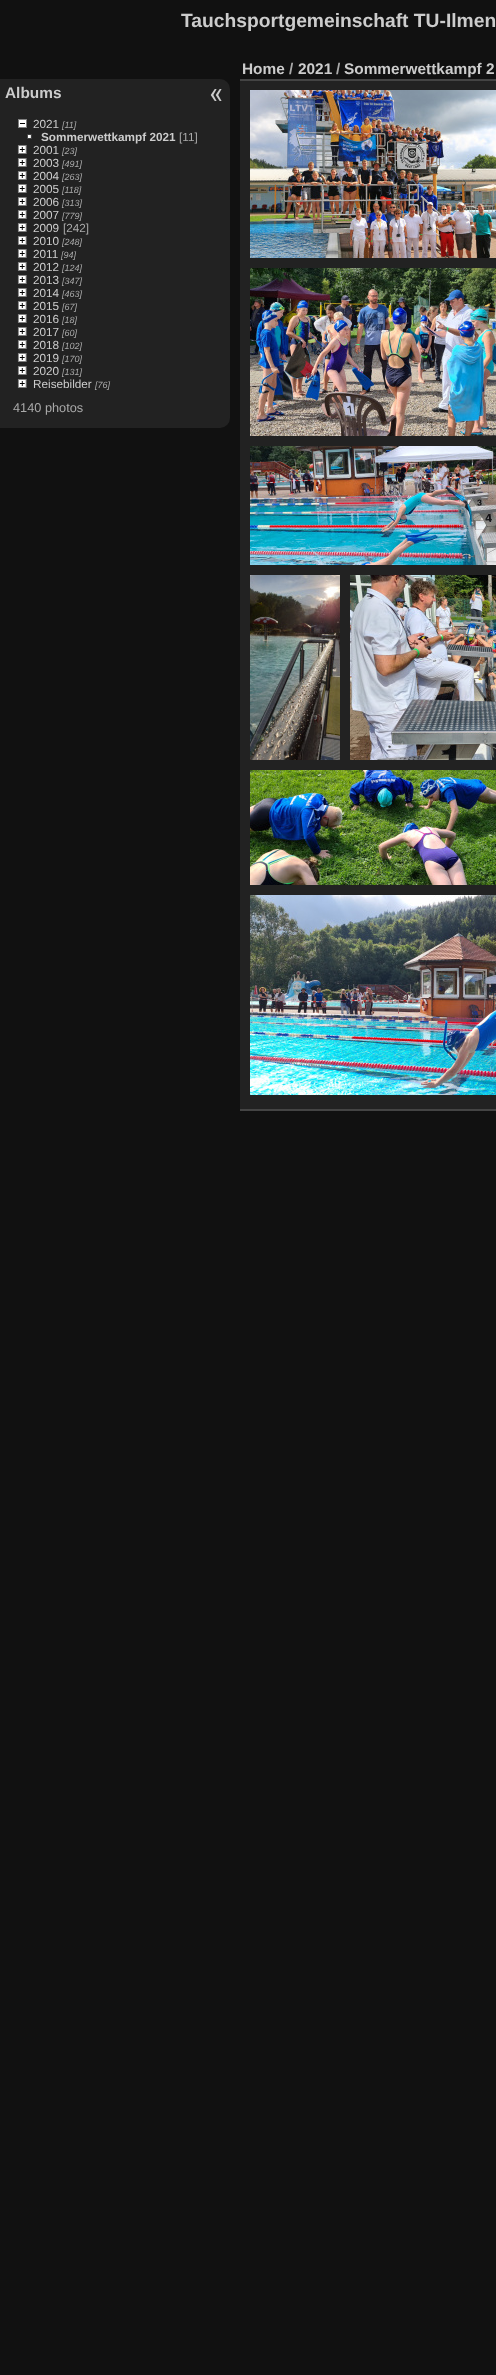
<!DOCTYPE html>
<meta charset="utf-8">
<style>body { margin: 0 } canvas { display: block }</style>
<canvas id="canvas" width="496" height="2375"></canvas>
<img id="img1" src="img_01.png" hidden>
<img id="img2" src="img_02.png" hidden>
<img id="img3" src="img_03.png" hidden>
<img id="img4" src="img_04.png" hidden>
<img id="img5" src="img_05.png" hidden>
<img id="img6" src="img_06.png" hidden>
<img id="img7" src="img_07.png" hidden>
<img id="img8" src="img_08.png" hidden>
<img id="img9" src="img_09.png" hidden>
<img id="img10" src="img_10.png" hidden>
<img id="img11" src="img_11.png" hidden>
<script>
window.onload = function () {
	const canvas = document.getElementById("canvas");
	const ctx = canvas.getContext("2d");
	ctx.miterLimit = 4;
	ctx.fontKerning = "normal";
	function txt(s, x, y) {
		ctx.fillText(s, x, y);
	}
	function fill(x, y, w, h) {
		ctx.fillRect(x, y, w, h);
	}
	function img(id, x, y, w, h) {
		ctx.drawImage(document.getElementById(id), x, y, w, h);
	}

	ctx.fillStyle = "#111111";
	fill(0, 0, 496, 2375);
	ctx.fillStyle = "#222222";
	fill(240, 81, 256, 1028);
	ctx.fillStyle = "#444444";
	fill(240, 1109, 256, 2);
	fill(240, 79, 256, 2);
	img("img1", 250, 90, 246, 168);
	img("img2", 250, 268, 246, 168);
	img("img3", 250, 446, 246, 119);
	img("img4", 250, 575, 90, 185);
	img("img5", 350, 575, 146, 185);
	img("img6", 250, 770, 246, 115);
	img("img7", 250, 895, 246, 200);
	ctx.fillStyle = "#222222";
	ctx.beginPath();
	ctx.roundRect(0, 79, 230, 349, [0, 10, 10, 0]);
	ctx.fill();
	img("img8", 18, 119, 9, 9);
	img("img9", 27, 134, 5, 5);
	img("img10", 17, 145, 10, 9);
	img("img10", 17, 158, 10, 9);
	img("img10", 17, 171, 10, 9);
	img("img10", 17, 184, 10, 9);
	img("img10", 17, 197, 10, 9);
	img("img10", 17, 210, 10, 9);
	img("img10", 17, 223, 10, 9);
	img("img10", 17, 236, 10, 9);
	img("img10", 17, 249, 10, 9);
	img("img10", 17, 262, 10, 9);
	img("img10", 17, 275, 10, 9);
	img("img10", 17, 288, 10, 9);
	img("img10", 17, 301, 10, 9);
	img("img10", 17, 314, 10, 9);
	img("img10", 17, 327, 10, 9);
	img("img10", 17, 340, 10, 9);
	img("img10", 17, 353, 10, 9);
	img("img10", 17, 366, 10, 9);
	img("img10", 17, 379, 10, 9);
	img("img11", 210, 89, 12, 12);
	ctx.font = "bold 19.25px Liberation Sans";
	ctx.fillStyle = "#CCCCCC";
	txt("Tauchsportgemeinschaft TU-Ilmen", 181, 27);
	ctx.font = "bold 15.4px Liberation Sans";
	txt("Home", 242, 74);
	ctx.fillStyle = "#AAAAAA";
	txt("/", 289, 74);
	ctx.fillStyle = "#CCCCCC";
	txt("2021", 298, 74);
	ctx.fillStyle = "#AAAAAA";
	txt("/", 336, 74);
	ctx.fillStyle = "#CCCCCC";
	txt("Sommerwettkampf 2", 344, 74);
	txt("Albums", 5, 98);
	ctx.font = "11.75px Liberation Sans";
	txt("2021", 33, 128);
	ctx.font = "italic 9px Liberation Sans";
	ctx.fillStyle = "#AAAAAA";
	txt("[11]", 62, 128);
	ctx.font = "bold 11.75px Liberation Sans";
	ctx.fillStyle = "#CCCCCC";
	txt("Sommerwettkampf 2021", 41, 141);
	ctx.font = "11.75px Liberation Sans";
	ctx.fillStyle = "#AAAAAA";
	txt("[11]", 179, 141);
	ctx.fillStyle = "#CCCCCC";
	txt("2001", 33, 154);
	ctx.font = "italic 9px Liberation Sans";
	ctx.fillStyle = "#AAAAAA";
	txt("[23]", 62, 154);
	ctx.font = "11.75px Liberation Sans";
	ctx.fillStyle = "#CCCCCC";
	txt("2003", 33, 167);
	ctx.font = "italic 9px Liberation Sans";
	ctx.fillStyle = "#AAAAAA";
	txt("[491]", 62, 167);
	ctx.font = "11.75px Liberation Sans";
	ctx.fillStyle = "#CCCCCC";
	txt("2004", 33, 180);
	ctx.font = "italic 9px Liberation Sans";
	ctx.fillStyle = "#AAAAAA";
	txt("[263]", 62, 180);
	ctx.font = "11.75px Liberation Sans";
	ctx.fillStyle = "#CCCCCC";
	txt("2005", 33, 193);
	ctx.font = "italic 9px Liberation Sans";
	ctx.fillStyle = "#AAAAAA";
	txt("[118]", 62, 193);
	ctx.font = "11.75px Liberation Sans";
	ctx.fillStyle = "#CCCCCC";
	txt("2006", 33, 206);
	ctx.font = "italic 9px Liberation Sans";
	ctx.fillStyle = "#AAAAAA";
	txt("[313]", 62, 206);
	ctx.font = "11.75px Liberation Sans";
	ctx.fillStyle = "#CCCCCC";
	txt("2007", 33, 219);
	ctx.font = "italic 9px Liberation Sans";
	ctx.fillStyle = "#AAAAAA";
	txt("[779]", 62, 219);
	ctx.font = "11.75px Liberation Sans";
	ctx.fillStyle = "#CCCCCC";
	txt("2009", 33, 232);
	ctx.fillStyle = "#AAAAAA";
	txt("[242]", 63, 232);
	ctx.fillStyle = "#CCCCCC";
	txt("2010", 33, 245);
	ctx.font = "italic 9px Liberation Sans";
	ctx.fillStyle = "#AAAAAA";
	txt("[248]", 62, 245);
	ctx.font = "11.75px Liberation Sans";
	ctx.fillStyle = "#CCCCCC";
	txt("2011", 33, 258);
	ctx.font = "italic 9px Liberation Sans";
	ctx.fillStyle = "#AAAAAA";
	txt("[94]", 61, 258);
	ctx.font = "11.75px Liberation Sans";
	ctx.fillStyle = "#CCCCCC";
	txt("2012", 33, 271);
	ctx.font = "italic 9px Liberation Sans";
	ctx.fillStyle = "#AAAAAA";
	txt("[124]", 62, 271);
	ctx.font = "11.75px Liberation Sans";
	ctx.fillStyle = "#CCCCCC";
	txt("2013", 33, 284);
	ctx.font = "italic 9px Liberation Sans";
	ctx.fillStyle = "#AAAAAA";
	txt("[347]", 62, 284);
	ctx.font = "11.75px Liberation Sans";
	ctx.fillStyle = "#CCCCCC";
	txt("2014", 33, 297);
	ctx.font = "italic 9px Liberation Sans";
	ctx.fillStyle = "#AAAAAA";
	txt("[463]", 62, 297);
	ctx.font = "11.75px Liberation Sans";
	ctx.fillStyle = "#CCCCCC";
	txt("2015", 33, 310);
	ctx.font = "italic 9px Liberation Sans";
	ctx.fillStyle = "#AAAAAA";
	txt("[67]", 62, 310);
	ctx.font = "11.75px Liberation Sans";
	ctx.fillStyle = "#CCCCCC";
	txt("2016", 33, 323);
	ctx.font = "italic 9px Liberation Sans";
	ctx.fillStyle = "#AAAAAA";
	txt("[18]", 62, 323);
	ctx.font = "11.75px Liberation Sans";
	ctx.fillStyle = "#CCCCCC";
	txt("2017", 33, 336);
	ctx.font = "italic 9px Liberation Sans";
	ctx.fillStyle = "#AAAAAA";
	txt("[60]", 62, 336);
	ctx.font = "11.75px Liberation Sans";
	ctx.fillStyle = "#CCCCCC";
	txt("2018", 33, 349);
	ctx.font = "italic 9px Liberation Sans";
	ctx.fillStyle = "#AAAAAA";
	txt("[102]", 62, 349);
	ctx.font = "11.75px Liberation Sans";
	ctx.fillStyle = "#CCCCCC";
	txt("2019", 33, 362);
	ctx.font = "italic 9px Liberation Sans";
	ctx.fillStyle = "#AAAAAA";
	txt("[170]", 62, 362);
	ctx.font = "11.75px Liberation Sans";
	ctx.fillStyle = "#CCCCCC";
	txt("2020", 33, 375);
	ctx.font = "italic 9px Liberation Sans";
	ctx.fillStyle = "#AAAAAA";
	txt("[131]", 62, 375);
	ctx.font = "11.75px Liberation Sans";
	ctx.fillStyle = "#CCCCCC";
	txt("Reisebilder", 33, 388);
	ctx.font = "italic 9px Liberation Sans";
	ctx.fillStyle = "#AAAAAA";
	txt("[76]", 95, 388);
	ctx.font = "12.75px Liberation Sans";
	txt("4140 photos", 13, 412);
};
</script>
